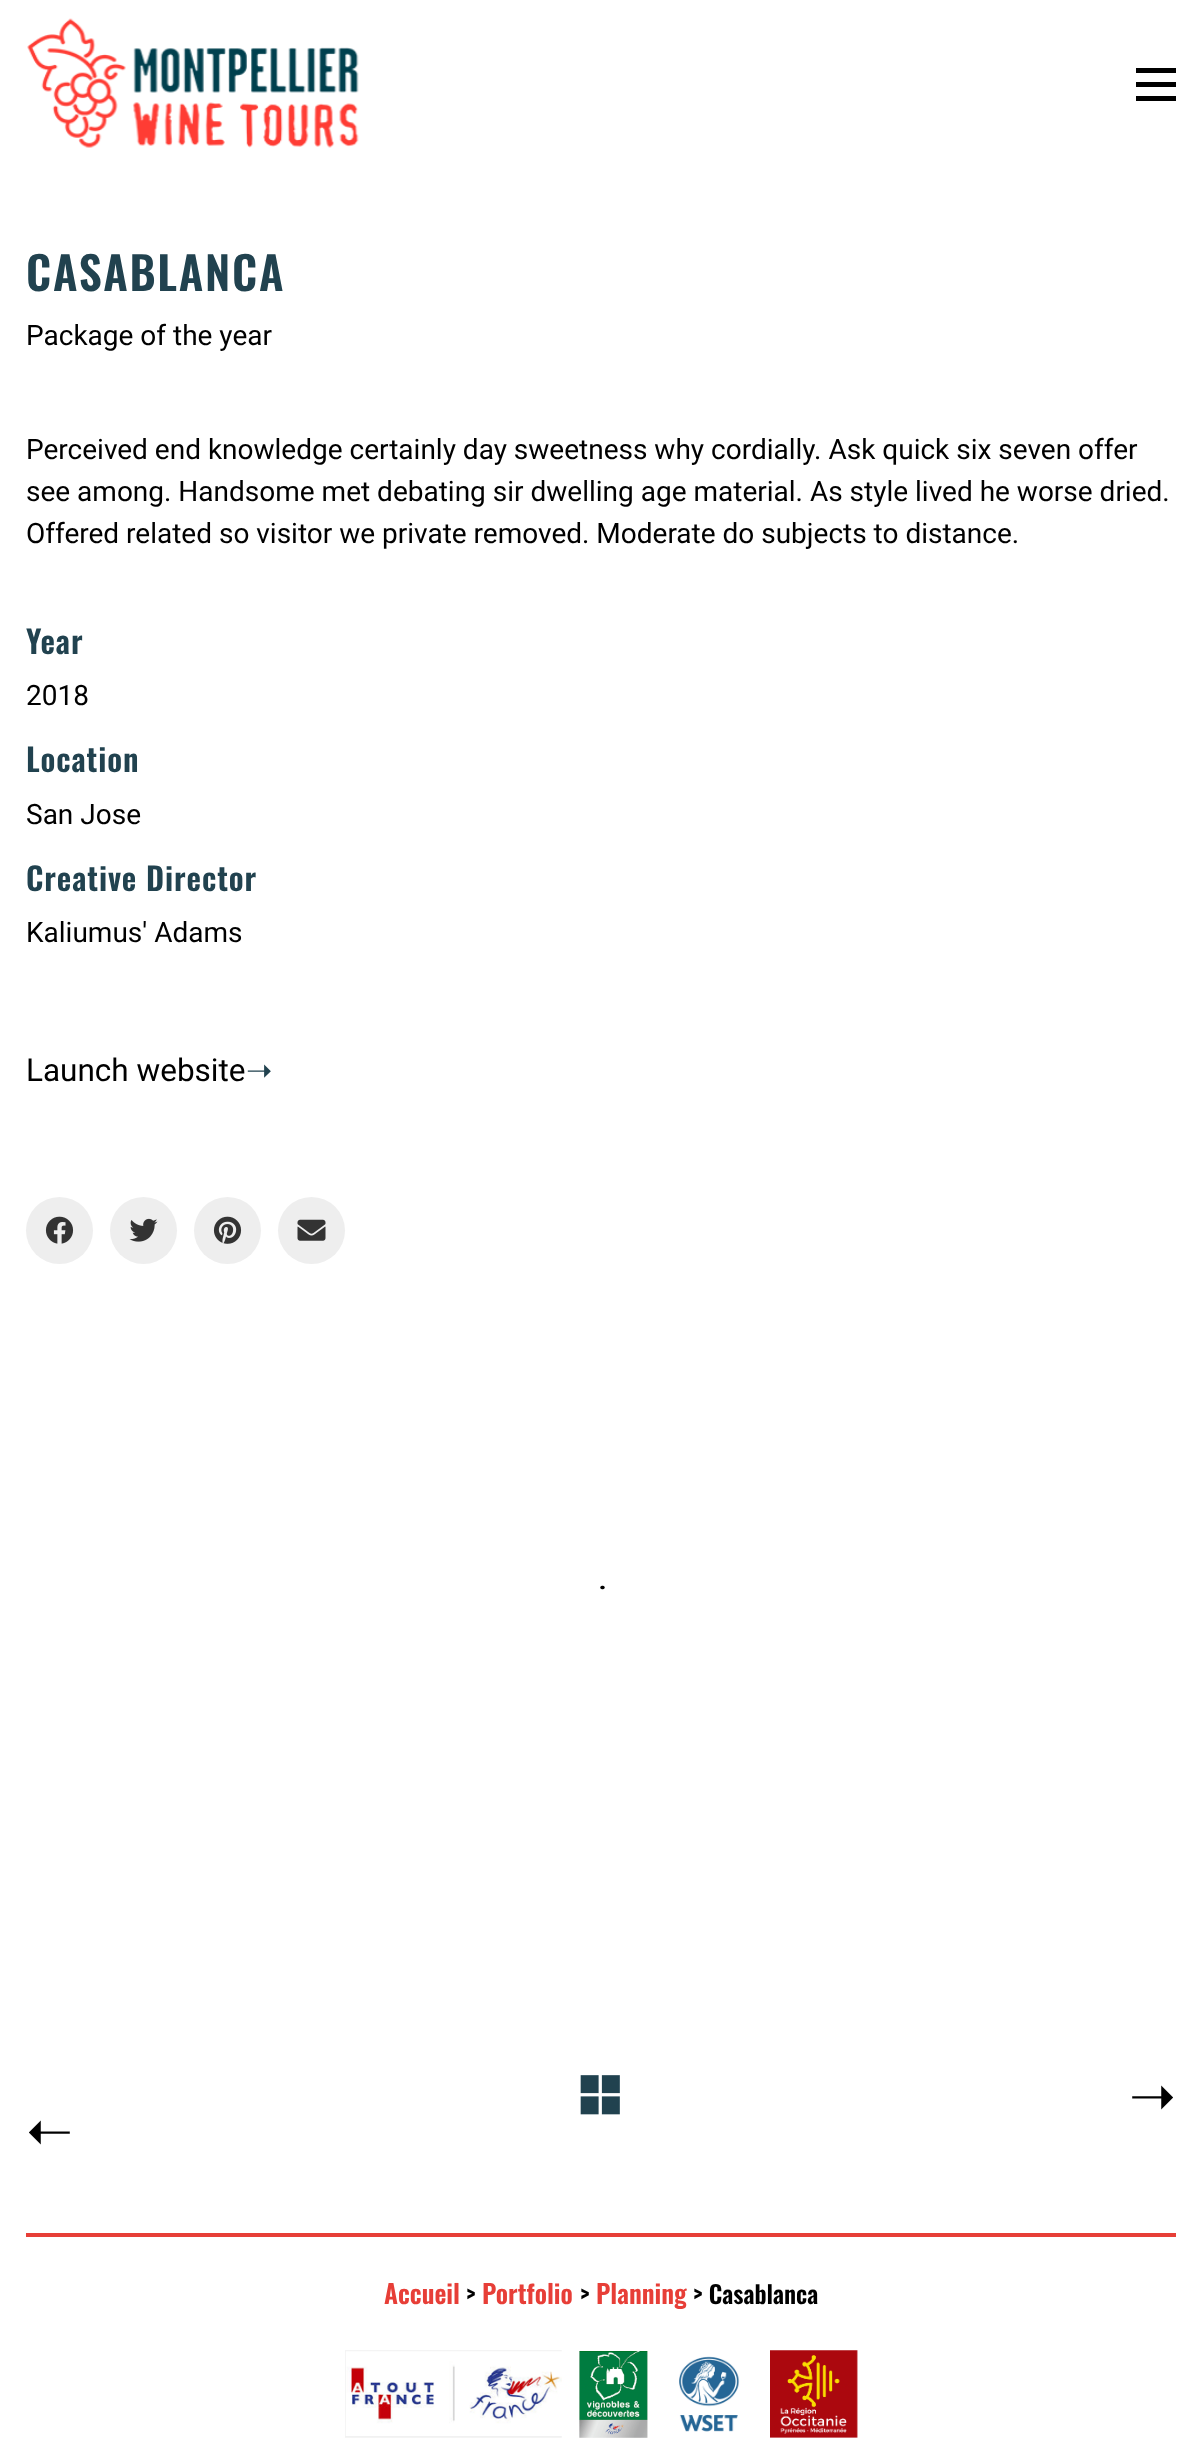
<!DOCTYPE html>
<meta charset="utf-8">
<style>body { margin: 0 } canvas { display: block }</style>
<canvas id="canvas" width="1201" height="2442"></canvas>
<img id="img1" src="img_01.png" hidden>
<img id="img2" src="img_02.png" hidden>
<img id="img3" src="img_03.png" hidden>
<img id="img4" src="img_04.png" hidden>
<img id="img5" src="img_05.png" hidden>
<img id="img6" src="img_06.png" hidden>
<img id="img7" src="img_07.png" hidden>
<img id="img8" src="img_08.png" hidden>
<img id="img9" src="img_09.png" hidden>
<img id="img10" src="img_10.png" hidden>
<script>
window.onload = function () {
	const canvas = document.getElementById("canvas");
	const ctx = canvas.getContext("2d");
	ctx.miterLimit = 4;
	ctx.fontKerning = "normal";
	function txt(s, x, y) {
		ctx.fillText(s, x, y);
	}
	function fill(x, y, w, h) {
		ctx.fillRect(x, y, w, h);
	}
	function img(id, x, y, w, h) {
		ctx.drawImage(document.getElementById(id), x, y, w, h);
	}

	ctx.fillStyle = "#FFFFFF";
	fill(0, 0, 1201, 2442);
	img("img1", 27, 18, 332, 130);
	ctx.fillStyle = "#000000";
	fill(1136, 68, 40, 5);
	fill(1136, 82, 40, 5);
	fill(1136, 96, 40, 5);
	ctx.fillStyle = "#EEEEEE";
	ctx.beginPath();
	ctx.arc(59.5, 1230.5, 33.5, 0, Math.PI * 2);
	ctx.fill();
	img("img2", 45, 1216, 29, 28);
	ctx.beginPath();
	ctx.arc(143.5, 1230.5, 33.5, 0, Math.PI * 2);
	ctx.fill();
	img("img3", 129, 1218, 29, 24);
	ctx.beginPath();
	ctx.arc(227.5, 1230.5, 33.5, 0, Math.PI * 2);
	ctx.fill();
	img("img4", 213, 1216, 29, 28);
	ctx.beginPath();
	ctx.arc(311.5, 1230.5, 33.5, 0, Math.PI * 2);
	ctx.fill();
	img("img5", 297, 1219, 29, 22);
	ctx.beginPath();
	ctx.moveTo(602, 1587.5);
	ctx.lineTo(603, 1587.5);
	ctx.strokeStyle = "#000000";
	ctx.lineWidth = 3.4;
	ctx.lineCap = "round";
	ctx.stroke();
	img("img6", 580, 2075, 40, 40);
	ctx.fillStyle = "#E73E37";
	fill(26, 2233, 1150, 4);
	img("img7", 345, 2350, 217, 88);
	img("img8", 579, 2351, 69, 87);
	img("img9", 679, 2356, 61, 76);
	img("img10", 770, 2350, 88, 88);
	ctx.letterSpacing = "1.75px";
	ctx.font = "600 45.5px Oswald";
	ctx.fillStyle = "#21424F";
	txt("CASABLANCA", 26, 291);
	ctx.letterSpacing = "0px";
	ctx.font = "28px Roboto";
	ctx.fillStyle = "#000000";
	txt("Package of the year", 26, 345);
	txt("Perceived end knowledge certainly day sweetness why cordially. Ask quick six seven offer", 26, 459);
	txt("see among. Handsome met debating sir dwelling age material. As style lived he worse dried.", 26, 501);
	txt("Offered related so visitor we private removed. Moderate do subjects to distance.", 26, 543);
	ctx.letterSpacing = "0.9px";
	ctx.font = "600 31.5px Oswald";
	ctx.fillStyle = "#21424F";
	txt("Year", 26, 654);
	ctx.letterSpacing = "0px";
	ctx.font = "28px Roboto";
	ctx.fillStyle = "#000000";
	txt("2018", 26, 705);
	ctx.letterSpacing = "0.9px";
	ctx.font = "600 31.5px Oswald";
	ctx.fillStyle = "#21424F";
	txt("Location", 26, 772);
	ctx.letterSpacing = "0px";
	ctx.font = "28px Roboto";
	ctx.fillStyle = "#000000";
	txt("San Jose", 26, 824);
	ctx.letterSpacing = "0.9px";
	ctx.font = "600 31.5px Oswald";
	ctx.fillStyle = "#21424F";
	txt("Creative Director", 26, 891);
	ctx.letterSpacing = "0px";
	ctx.font = "28px Roboto";
	ctx.fillStyle = "#000000";
	txt("Kaliumus' Adams", 26, 942);
	ctx.font = "31.5px Roboto";
	txt("Launch website", 26, 1081);
	ctx.font = "31.5px DejaVu Sans";
	ctx.fillStyle = "#21424F";
	txt("➝", 246, 1081);
	ctx.font = "56px DejaVu Sans";
	ctx.fillStyle = "#000000";
	txt("➝", 1129, 2115);
	ctx.save();
	ctx.translate(73, 2115);
	ctx.rotate(180 * Math.PI / 180);
	ctx.fillText("➝", 0, 0);
	ctx.restore();
	ctx.font = "600 26px Oswald";
	ctx.fillStyle = "#E73E37";
	txt("Accueil", 384, 2304);
	ctx.font = "600 24.5px Oswald";
	ctx.fillStyle = "#000000";
	txt(">", 466, 2304);
	ctx.font = "600 26px Oswald";
	ctx.fillStyle = "#E73E37";
	txt("Portfolio", 482, 2304);
	ctx.font = "600 24.5px Oswald";
	ctx.fillStyle = "#000000";
	txt(">", 580, 2304);
	ctx.font = "600 26px Oswald";
	ctx.fillStyle = "#E73E37";
	txt("Planning", 596, 2304);
	ctx.font = "600 24.5px Oswald";
	ctx.fillStyle = "#000000";
	txt("> Casablanca", 693, 2304);
};
</script>
